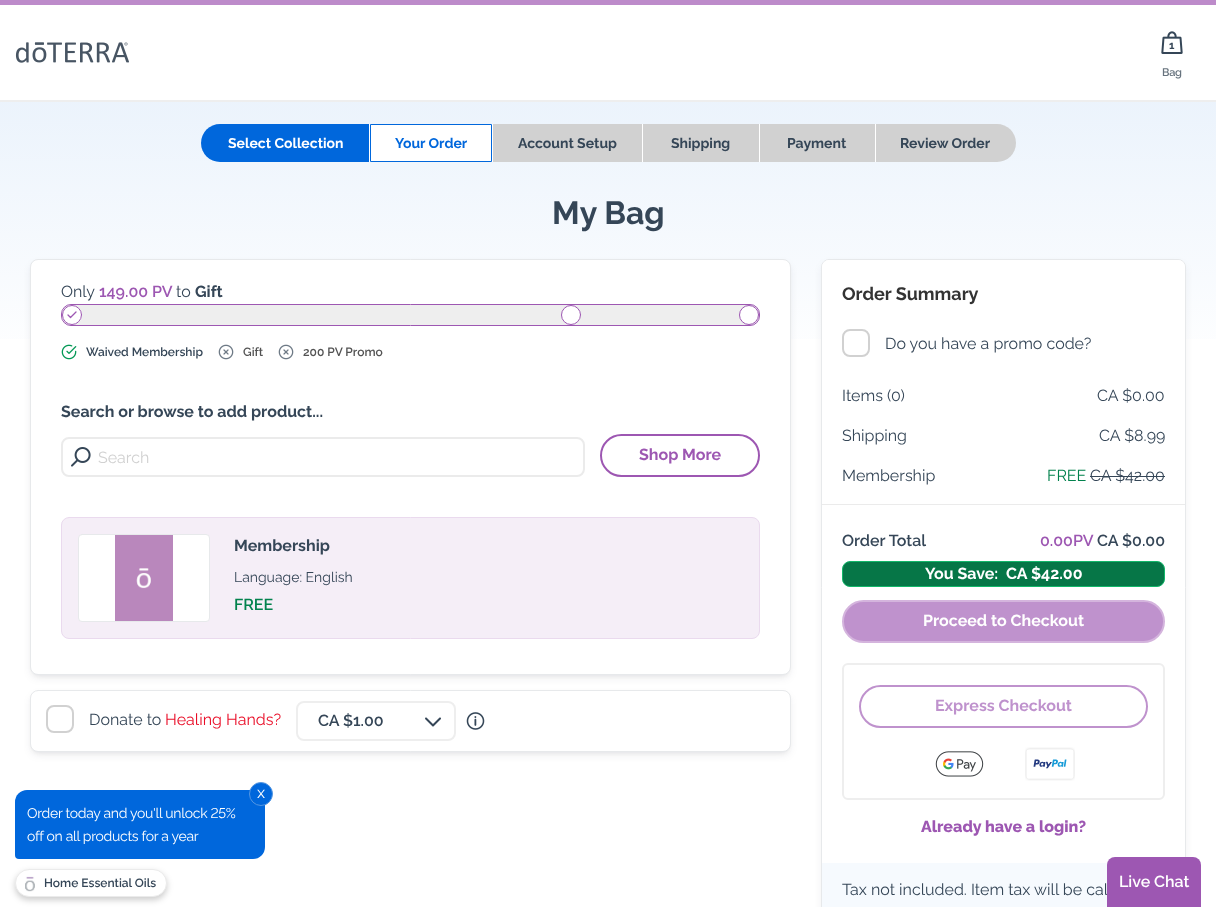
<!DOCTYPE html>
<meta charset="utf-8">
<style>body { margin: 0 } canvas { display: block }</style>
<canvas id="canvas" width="1216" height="907"></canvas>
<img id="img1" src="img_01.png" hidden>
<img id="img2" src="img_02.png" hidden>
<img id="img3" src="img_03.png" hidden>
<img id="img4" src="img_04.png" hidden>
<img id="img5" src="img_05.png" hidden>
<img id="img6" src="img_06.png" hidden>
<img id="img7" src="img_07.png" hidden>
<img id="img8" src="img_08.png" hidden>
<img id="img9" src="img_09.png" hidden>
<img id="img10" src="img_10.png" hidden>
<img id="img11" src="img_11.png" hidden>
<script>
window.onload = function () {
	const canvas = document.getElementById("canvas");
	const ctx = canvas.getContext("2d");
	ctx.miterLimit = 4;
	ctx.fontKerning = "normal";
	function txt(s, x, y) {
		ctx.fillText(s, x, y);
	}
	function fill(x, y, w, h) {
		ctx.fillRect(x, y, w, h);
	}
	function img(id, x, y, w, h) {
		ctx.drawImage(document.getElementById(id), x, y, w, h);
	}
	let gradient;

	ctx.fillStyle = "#FFFFFF";
	fill(0, 0, 1216, 907);
	ctx.fillStyle = "#BD8BCA";
	fill(0, 0, 1216, 5);
	ctx.fillStyle = "#EEEEEE";
	fill(0, 100, 1216, 2);
	img("img1", 15, 42, 114, 21);
	img("img2", 1161, 31, 22, 23);
	gradient = ctx.createLinearGradient(608, 374, 608, 94);
	gradient.addColorStop(0, "#FFFFFF");
	gradient.addColorStop(1, "#EBF3FC");
	ctx.fillStyle = gradient;
	fill(0, 102, 1216, 237);
	ctx.fillStyle = "#0067DC";
	ctx.beginPath();
	ctx.roundRect(201, 124, 169, 38, [19, 0, 0, 19]);
	ctx.fill();
	ctx.fillStyle = "#FFFFFF";
	fill(369, 124, 1, 38);
	ctx.beginPath();
	ctx.rect(370.5, 124.5, 121, 37);
	ctx.fill();
	ctx.strokeStyle = "#0067DC";
	ctx.stroke();
	ctx.fillStyle = "#D1D1D1";
	fill(493, 124, 149, 38);
	ctx.fillStyle = "#FFFFFF";
	fill(492, 124, 1, 38);
	ctx.fillStyle = "#D1D1D1";
	fill(643, 124, 116, 38);
	ctx.fillStyle = "#FFFFFF";
	fill(642, 124, 1, 38);
	ctx.fillStyle = "#D1D1D1";
	fill(760, 124, 115, 38);
	ctx.fillStyle = "#FFFFFF";
	fill(759, 124, 1, 38);
	ctx.fillStyle = "#D1D1D1";
	ctx.beginPath();
	ctx.roundRect(875, 124, 141, 38, [0, 19, 19, 0]);
	ctx.fill();
	ctx.fillStyle = "#FFFFFF";
	fill(875, 124, 1, 38);
	ctx.fillStyle = "rgba(16, 24, 40, 0.1)";
	ctx.filter = "blur(4px)";
	ctx.beginPath();
	ctx.roundRect(32, 265, 757, 412, 6);
	ctx.fill();
	ctx.filter = "none";
	ctx.fillStyle = "rgba(16, 24, 40, 0.06)";
	ctx.filter = "blur(2px)";
	ctx.beginPath();
	ctx.roundRect(32, 263, 757, 412, 6);
	ctx.fill();
	ctx.filter = "none";
	ctx.fillStyle = "#FFFFFF";
	ctx.beginPath();
	ctx.roundRect(30.5, 259.5, 760, 415, 7.5);
	ctx.fill();
	ctx.strokeStyle = "#E7E9EB";
	ctx.stroke();
	ctx.fillStyle = "#EEEEEE";
	ctx.beginPath();
	ctx.roundRect(61.5, 304.5, 698, 21, 9.5);
	ctx.fill();
	ctx.strokeStyle = "#9D57B2";
	ctx.stroke();
	ctx.fillStyle = "#FFFFFF";
	ctx.beginPath();
	ctx.arc(72, 315, 10, 0, Math.PI * 2);
	ctx.fill();
	ctx.beginPath();
	ctx.moveTo(76, 312);
	ctx.lineTo(70.5, 317.5);
	ctx.lineTo(68, 315);
	ctx.lineWidth = 1.3;
	ctx.lineCap = "round";
	ctx.lineJoin = "round";
	ctx.stroke();
	ctx.beginPath();
	ctx.arc(72, 315, 9.5, 0, Math.PI * 2);
	ctx.lineWidth = 1;
	ctx.stroke();
	ctx.beginPath();
	ctx.arc(571, 315, 9.5, 0, Math.PI * 2);
	ctx.fill();
	ctx.stroke();
	ctx.beginPath();
	ctx.arc(749, 315, 9.5, 0, Math.PI * 2);
	ctx.fill();
	ctx.stroke();
	img("img3", 61, 344, 16, 16);
	img("img4", 218, 344, 16, 16);
	img("img4", 278, 344, 16, 16);
	ctx.beginPath();
	ctx.roundRect(62, 438, 522, 38, 7);
	ctx.strokeStyle = "#EBEBEB";
	ctx.lineWidth = 2;
	ctx.lineJoin = "miter";
	ctx.stroke();
	img("img5", 71, 447, 20, 20);
	ctx.beginPath();
	ctx.roundRect(601, 435, 158, 41, 20.5);
	ctx.strokeStyle = "#9D57B2";
	ctx.stroke();
	ctx.fillStyle = "#F5EEF7";
	ctx.beginPath();
	ctx.roundRect(61.5, 517.5, 698, 121, 7.5);
	ctx.fill();
	ctx.strokeStyle = "#EADAEE";
	ctx.lineWidth = 1;
	ctx.stroke();
	ctx.fillStyle = "#FFFFFF";
	ctx.beginPath();
	ctx.roundRect(78.5, 534.5, 131, 87, 3.5);
	ctx.fill();
	ctx.strokeStyle = "#E7E9EB";
	ctx.stroke();
	img("img6", 115, 535, 58, 86);
	ctx.fillStyle = "rgba(16, 24, 40, 0.1)";
	ctx.filter = "blur(4px)";
	ctx.beginPath();
	ctx.roundRect(32, 696, 757, 58, 6);
	ctx.fill();
	ctx.filter = "none";
	ctx.fillStyle = "rgba(16, 24, 40, 0.06)";
	ctx.filter = "blur(2px)";
	ctx.beginPath();
	ctx.roundRect(32, 694, 757, 58, 6);
	ctx.fill();
	ctx.filter = "none";
	ctx.fillStyle = "#FFFFFF";
	ctx.beginPath();
	ctx.roundRect(30.5, 690.5, 760, 61, 7.5);
	ctx.fill();
	ctx.stroke();
	ctx.beginPath();
	ctx.roundRect(47, 706, 26, 26, 7);
	ctx.strokeStyle = "#D1D1D1";
	ctx.lineWidth = 2;
	ctx.stroke();
	ctx.beginPath();
	ctx.roundRect(297, 702, 158, 38, 7);
	ctx.strokeStyle = "#EEEEEE";
	ctx.stroke();
	img("img7", 425, 717, 16, 10);
	img("img8", 466, 712, 19, 18);
	ctx.fillStyle = "rgba(16, 24, 40, 0.1)";
	ctx.filter = "blur(4px)";
	ctx.beginPath();
	ctx.roundRect(823, 265, 361, 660, 6);
	ctx.fill();
	ctx.filter = "none";
	ctx.fillStyle = "#FFFFFF";
	ctx.beginPath();
	ctx.roundRect(821.5, 259.5, 364, 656, 7.5);
	ctx.fill();
	ctx.strokeStyle = "#E7E9EB";
	ctx.lineWidth = 1;
	ctx.stroke();
	ctx.beginPath();
	ctx.roundRect(822, 260, 363, 57, [7, 7, 0, 0]);
	ctx.fill();
	ctx.beginPath();
	ctx.roundRect(843, 330, 26, 26, 7);
	ctx.strokeStyle = "#D1D1D1";
	ctx.lineWidth = 2;
	ctx.stroke();
	ctx.fillStyle = "#354657";
	fill(1090, 476, 75, 1);
	ctx.fillStyle = "#EBEBEB";
	fill(822, 504, 363, 1);
	ctx.fillStyle = "#067647";
	ctx.beginPath();
	ctx.roundRect(842.5, 561.5, 322, 25, 7.5);
	ctx.fill();
	ctx.strokeStyle = "#12B76A";
	ctx.lineWidth = 1;
	ctx.stroke();
	ctx.fillStyle = "#BF92CD";
	ctx.beginPath();
	ctx.roundRect(843, 601, 321, 41, 20.5);
	ctx.fill();
	ctx.strokeStyle = "#D4B4DD";
	ctx.lineWidth = 2;
	ctx.stroke();
	ctx.beginPath();
	ctx.roundRect(843, 664, 321, 135, 5);
	ctx.strokeStyle = "#EEEEEE";
	ctx.stroke();
	ctx.beginPath();
	ctx.roundRect(860, 686, 287, 41, 20.5);
	ctx.strokeStyle = "#BF92CD";
	ctx.stroke();
	img("img9", 935, 751, 49, 26);
	img("img10", 1025, 747, 50, 34);
	ctx.fillStyle = "#F6FAFE";
	fill(822, 863, 286, 44);
	ctx.fillStyle = "#0067DC";
	ctx.beginPath();
	ctx.roundRect(15, 790, 250, 69, [12, 12, 12, 4]);
	ctx.fill();
	ctx.beginPath();
	ctx.arc(261, 794, 11.5, 0, Math.PI * 2);
	ctx.fill();
	ctx.strokeStyle = "#5597E2";
	ctx.lineWidth = 1;
	ctx.stroke();
	ctx.fillStyle = "rgba(0, 0, 0, 0.2)";
	ctx.filter = "blur(3px)";
	ctx.beginPath();
	ctx.roundRect(15, 872, 152, 28, 14);
	ctx.fill();
	ctx.filter = "none";
	ctx.fillStyle = "#FFFFFF";
	ctx.beginPath();
	ctx.roundRect(15.5, 869.5, 151, 27, 13.5);
	ctx.fill();
	ctx.strokeStyle = "#EBEBEB";
	ctx.stroke();
	img("img11", 25, 876, 10, 16);
	ctx.letterSpacing = "-0.3px";
	ctx.font = "bold 11px Raleway";
	ctx.fillStyle = "#354657";
	txt("1", 1169, 49);
	ctx.font = "600 11px Raleway";
	ctx.fillStyle = "#67737E";
	txt("Bag", 1162, 76);
	ctx.letterSpacing = "0px";
	ctx.font = "bold 14px Raleway";
	ctx.fillStyle = "#FFFFFF";
	txt("Select Collection", 228, 148);
	ctx.fillStyle = "#0067DC";
	txt("Your Order", 395, 148);
	ctx.fillStyle = "#354657";
	txt("Account Setup", 518, 148);
	txt("Shipping", 671, 148);
	txt("Payment", 787, 148);
	txt("Review Order", 900, 148);
	ctx.font = "bold 32px Raleway";
	txt("My Bag", 552, 224);
	ctx.font = "16px Raleway";
	txt("Only", 61, 297);
	ctx.font = "600 16px Raleway";
	ctx.fillStyle = "#9D57B2";
	txt("149.00 PV", 99, 297);
	ctx.font = "16px Raleway";
	ctx.fillStyle = "#354657";
	txt("to", 176, 297);
	ctx.font = "bold 16px Raleway";
	txt("Gift", 195, 297);
	ctx.font = "600 12px Raleway";
	txt("Waived Membership", 86, 356);
	ctx.fillStyle = "#535353";
	txt("Gift", 243, 356);
	txt("200 PV Promo", 303, 356);
	ctx.font = "bold 16px Raleway";
	ctx.fillStyle = "#354657";
	txt("Search or browse to add product...", 61, 417);
	ctx.font = "16px Raleway";
	ctx.fillStyle = "#D1D1D1";
	txt("Search", 98, 463);
	ctx.font = "bold 16px Raleway";
	ctx.fillStyle = "#9D57B2";
	txt("Shop More", 639, 460);
	ctx.fillStyle = "#354657";
	txt("Membership", 234, 551);
	ctx.font = "14px Raleway";
	txt("Language: English", 234, 582);
	ctx.font = "600 16px Raleway";
	ctx.fillStyle = "#03824D";
	txt("FREE", 234, 610);
	ctx.font = "16px Raleway";
	ctx.fillStyle = "#354657";
	txt("Donate to", 89, 725);
	ctx.fillStyle = "#E90C26";
	txt("Healing Hands?", 165, 725);
	ctx.font = "600 16px Raleway";
	ctx.fillStyle = "#354657";
	txt("CA $1.00", 318, 726);
	ctx.font = "bold 18px Raleway";
	ctx.fillStyle = "#333333";
	txt("Order Summary", 842, 300);
	ctx.font = "16px Raleway";
	ctx.fillStyle = "#354657";
	txt("Do you have a promo code?", 885, 349);
	txt("Items (0)", 842, 401);
	txt("CA $0.00", 1097, 401);
	txt("Shipping", 842, 441);
	txt("CA $8.99", 1099, 441);
	txt("Membership", 842, 481);
	ctx.fillStyle = "#03824D";
	txt("FREE", 1047, 481);
	ctx.fillStyle = "#354657";
	txt("CA $42.00", 1090, 481);
	ctx.font = "600 16px Raleway";
	txt("Order Total", 842, 546);
	ctx.fillStyle = "#9D57B2";
	txt("0.00PV", 1040, 546);
	ctx.fillStyle = "#354657";
	txt("CA $0.00", 1097, 546);
	ctx.font = "bold 16px Raleway";
	ctx.fillStyle = "#FFFFFF";
	txt("You Save:", 925, 579);
	txt("CA $42.00", 1006, 579);
	txt("Proceed to Checkout", 923, 626);
	ctx.fillStyle = "#BF92CD";
	txt("Express Checkout", 935, 711);
	ctx.font = "800 16px Raleway";
	ctx.fillStyle = "#9D57B2";
	txt("Already have a login?", 921, 832);
	ctx.font = "16px Raleway";
	ctx.fillStyle = "#354657";
	txt("Tax not included. Item tax will be cal", 842, 895);
	ctx.fillStyle = "#FFFFFF";
	txt("x", 257, 798);
	ctx.letterSpacing = "-0.3px";
	ctx.font = "14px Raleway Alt";
	txt("Order today and you'll unlock 25%", 27, 818);
	ctx.font = "14px Raleway";
	txt("off on all products for a year", 27, 841);
	ctx.letterSpacing = "0px";
	ctx.font = "600 12px Raleway";
	ctx.fillStyle = "#354657";
	txt("Home Essential Oils", 44, 887);
	ctx.fillStyle = "#9D57B2";
	ctx.beginPath();
	ctx.roundRect(1107, 857, 94, 50, [8, 8, 0, 0]);
	ctx.fill();
	ctx.font = "600 16px Raleway";
	ctx.fillStyle = "#FFFFFF";
	txt("Live Chat", 1119, 887);
};
</script>
